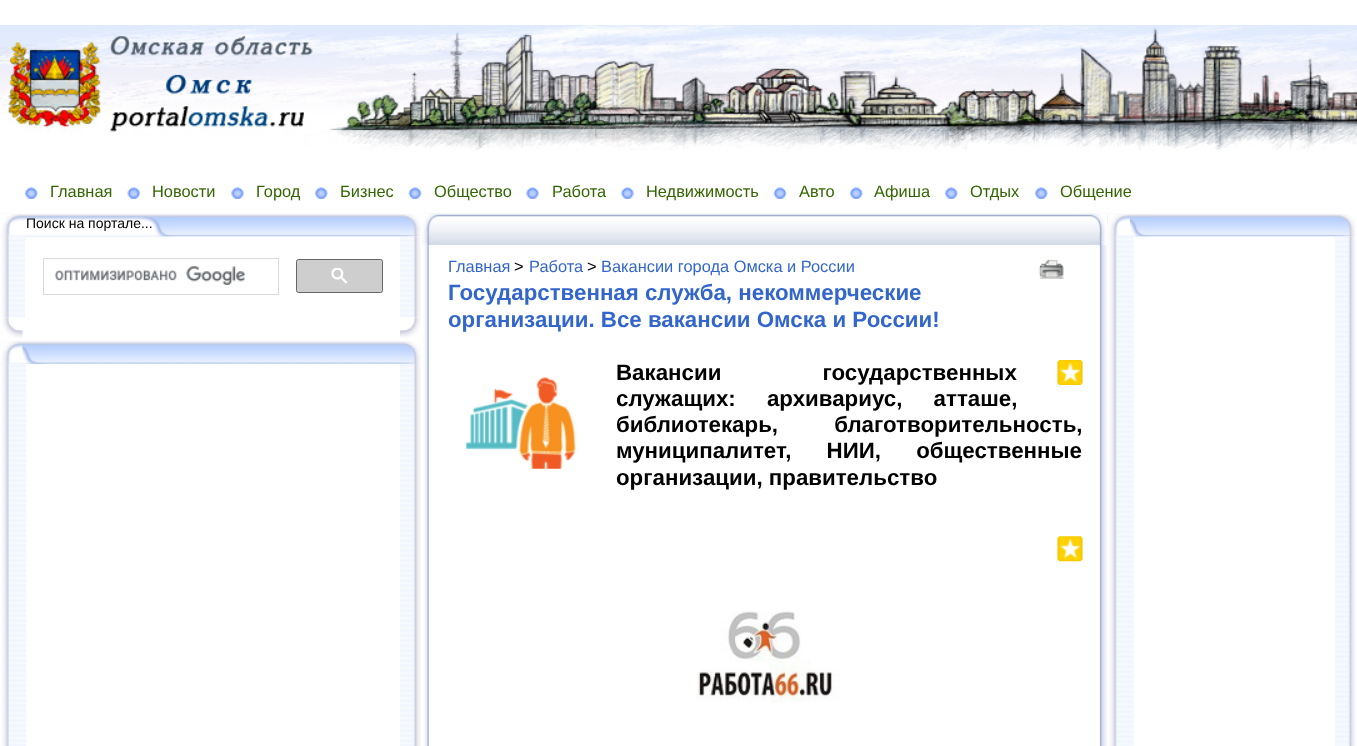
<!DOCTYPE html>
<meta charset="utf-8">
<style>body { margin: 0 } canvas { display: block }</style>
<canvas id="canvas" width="1357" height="746"></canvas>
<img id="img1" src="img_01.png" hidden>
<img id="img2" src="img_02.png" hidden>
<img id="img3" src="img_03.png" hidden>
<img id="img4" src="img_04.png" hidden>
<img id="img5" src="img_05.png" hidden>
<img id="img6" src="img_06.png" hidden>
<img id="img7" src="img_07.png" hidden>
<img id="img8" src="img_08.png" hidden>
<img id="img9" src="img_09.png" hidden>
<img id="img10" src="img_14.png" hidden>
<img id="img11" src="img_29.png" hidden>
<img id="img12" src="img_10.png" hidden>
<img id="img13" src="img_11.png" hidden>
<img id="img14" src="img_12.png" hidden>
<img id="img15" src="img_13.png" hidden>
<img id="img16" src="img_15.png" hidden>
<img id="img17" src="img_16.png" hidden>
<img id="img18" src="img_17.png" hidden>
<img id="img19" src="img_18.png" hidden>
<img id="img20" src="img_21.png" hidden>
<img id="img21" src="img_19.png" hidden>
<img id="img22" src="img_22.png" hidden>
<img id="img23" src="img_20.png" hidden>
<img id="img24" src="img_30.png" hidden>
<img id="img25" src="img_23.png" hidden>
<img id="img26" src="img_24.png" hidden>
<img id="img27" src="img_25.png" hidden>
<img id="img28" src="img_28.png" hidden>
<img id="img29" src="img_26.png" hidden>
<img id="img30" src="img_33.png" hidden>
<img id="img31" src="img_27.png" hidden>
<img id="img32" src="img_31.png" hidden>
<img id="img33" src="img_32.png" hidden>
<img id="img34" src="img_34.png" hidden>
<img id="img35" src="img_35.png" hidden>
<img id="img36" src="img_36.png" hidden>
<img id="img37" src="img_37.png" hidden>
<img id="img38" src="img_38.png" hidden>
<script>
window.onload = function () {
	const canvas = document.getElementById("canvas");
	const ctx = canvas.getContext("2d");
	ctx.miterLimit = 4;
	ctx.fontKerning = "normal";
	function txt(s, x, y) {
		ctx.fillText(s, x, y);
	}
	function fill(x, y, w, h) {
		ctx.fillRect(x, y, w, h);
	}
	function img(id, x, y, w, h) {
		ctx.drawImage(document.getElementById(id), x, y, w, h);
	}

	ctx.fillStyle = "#FFFFFF";
	fill(0, 0, 1357, 746);
	img("img1", 0, 25, 1357, 125);
	img("img2", 25, 187, 13, 12);
	img("img3", 127, 187, 13, 12);
	img("img4", 231, 187, 13, 12);
	img("img5", 315, 187, 13, 12);
	img("img6", 408, 187, 14, 12);
	img("img4", 526, 187, 13, 12);
	img("img4", 621, 187, 13, 12);
	img("img6", 773, 187, 14, 12);
	img("img5", 850, 187, 13, 12);
	img("img2", 945, 187, 13, 12);
	img("img5", 1035, 187, 13, 12);
	img("img7", 0, 213, 400, 24);
	img("img8", 0, 216, 176, 21);
	img("img9", 0, 214, 19, 22);
	img("img10", 400, 236, 21, 82);
	img("img11", 422, 213, 686, 32);
	img("img12", 400, 214, 23, 23);
	img("img13", 0, 236, 27, 82);
	fill(25, 240, 2, 78);
	ctx.strokeStyle = "#D9D9D9";
	ctx.strokeRect(43.5, 258.5, 235, 36);
	img("img14", 55, 266, 190, 19);
	ctx.fillStyle = "#CECECE";
	ctx.beginPath();
	ctx.roundRect(296.5, 259.5, 86, 33, 2);
	ctx.fill();
	ctx.strokeStyle = "#666666";
	ctx.stroke();
	img("img15", 331, 268, 17, 16);
	img("img16", 2, 317, 21, 21);
	img("img17", 400, 317, 21, 21);
	img("img18", 0, 341, 400, 23);
	img("img19", 0, 344, 45, 20);
	img("img20", 0, 363, 27, 383);
	img("img21", 0, 341, 23, 23);
	img("img22", 400, 363, 21, 383);
	img("img23", 400, 341, 21, 23);
	img("img24", 1087, 213, 21, 32);
	img("img25", 1107, 213, 228, 24);
	img("img26", 1107, 215, 46, 22);
	img("img27", 1107, 214, 23, 22);
	img("img28", 1335, 236, 21, 510);
	img("img29", 1335, 214, 21, 23);
	img("img30", 1099, 245, 9, 501);
	img("img31", 1107, 236, 27, 510);
	img("img32", 422, 213, 20, 32);
	img("img33", 423, 245, 6, 501);
	img("img34", 1038, 259, 26, 20);
	img("img35", 1057, 360, 26, 25);
	img("img36", 465, 377, 113, 92);
	img("img37", 1057, 536, 26, 26);
	img("img38", 696, 611, 144, 92);
	ctx.font = "16.4px Liberation Sans";
	ctx.fillStyle = "#336600";
	txt("Главная", 50, 197);
	txt("Новости", 152, 197);
	txt("Город", 256, 197);
	txt("Бизнес", 340, 197);
	txt("Общество", 434, 197);
	txt("Работа", 552, 197);
	txt("Недвижимость", 646, 197);
	txt("Авто", 799, 197);
	txt("Афиша", 874, 197);
	txt("Отдых", 970, 197);
	txt("Общение", 1060, 197);
	ctx.font = "14px Liberation Sans";
	ctx.fillStyle = "#000000";
	txt("Поиск на портале...", 26, 228);
	ctx.font = "16.4px Liberation Sans";
	ctx.fillStyle = "#3366CC";
	txt("Главная", 448, 272);
	ctx.fillStyle = "#000000";
	txt(">", 514, 272);
	ctx.fillStyle = "#3366CC";
	txt("Работа", 529, 272);
	ctx.fillStyle = "#000000";
	txt(">", 587, 272);
	ctx.fillStyle = "#3366CC";
	txt("Вакансии города Омска и России", 601, 272);
	ctx.font = "bold 22.3px Liberation Sans";
	txt("Государственная служба, некоммерческие", 448, 300);
	txt("организации. Все вакансии Омска и России!", 448, 327);
	ctx.wordSpacing = "95px";
	ctx.fillStyle = "#000000";
	txt("Вакансии государственных", 616, 380);
	ctx.wordSpacing = "25px";
	txt("служащих: архивариус, атташе,", 616, 406);
	ctx.wordSpacing = "50px";
	txt("библиотекарь, благотворительность,", 616, 432);
	ctx.wordSpacing = "29px";
	txt("муниципалитет, НИИ, общественные", 616, 458);
	ctx.wordSpacing = "0px";
	txt("организации, правительство", 616, 485);
};
</script>
